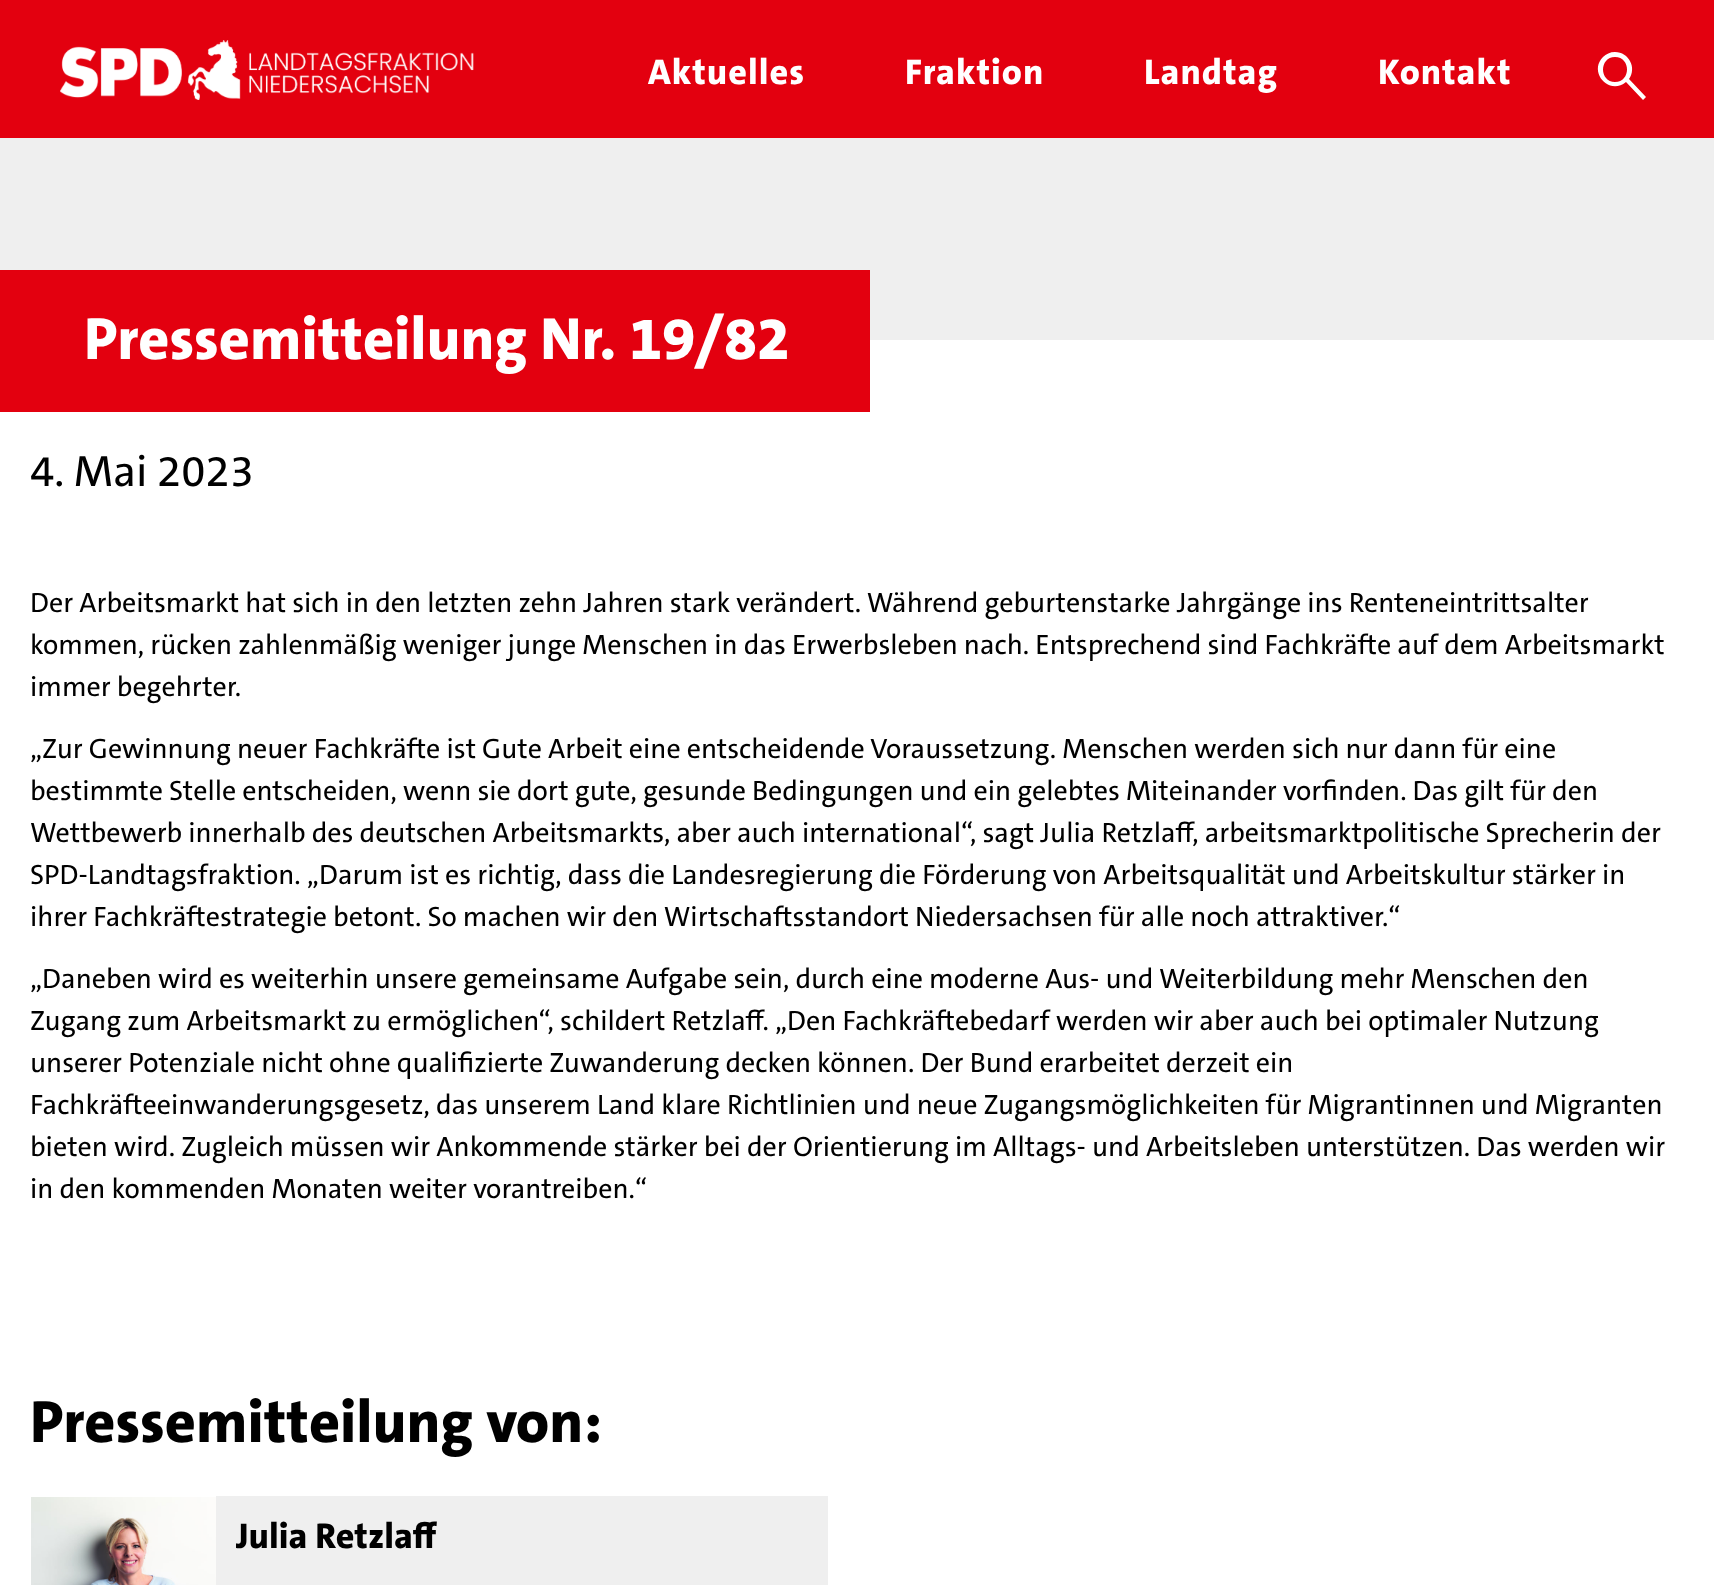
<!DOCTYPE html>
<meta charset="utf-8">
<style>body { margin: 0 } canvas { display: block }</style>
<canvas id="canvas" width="1714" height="1585"></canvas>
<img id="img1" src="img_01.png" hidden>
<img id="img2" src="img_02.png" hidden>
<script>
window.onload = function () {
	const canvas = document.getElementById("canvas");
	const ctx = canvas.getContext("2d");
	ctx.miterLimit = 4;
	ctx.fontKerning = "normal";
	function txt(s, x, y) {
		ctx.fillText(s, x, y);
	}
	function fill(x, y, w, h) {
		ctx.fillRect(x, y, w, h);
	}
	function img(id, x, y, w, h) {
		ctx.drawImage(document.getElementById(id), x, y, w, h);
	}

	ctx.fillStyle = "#FFFFFF";
	fill(0, 0, 1714, 1585);
	ctx.fillStyle = "#E3000F";
	fill(0, 0, 1714, 138);
	img("img1", 60, 40, 414, 60);
	ctx.fillStyle = "#FFFFFF";
	ctx.beginPath();
	ctx.moveTo(1615, 82);
	ctx.bezierCurveTo(1599, 82, 1599, 57, 1615, 57);
	ctx.bezierCurveTo(1631, 57, 1631, 82, 1615, 82);
	ctx.moveTo(1615, 52);
	ctx.bezierCurveTo(1610, 52, 1606, 54, 1603, 57);
	ctx.bezierCurveTo(1588, 72, 1609, 96, 1626, 82);
	ctx.lineTo(1643, 100);
	ctx.lineTo(1646, 97);
	ctx.lineTo(1629, 79);
	ctx.bezierCurveTo(1637, 68, 1629, 52, 1615, 52);
	ctx.fill();
	ctx.fillStyle = "#EFEFEF";
	fill(0, 138, 1714, 202);
	ctx.fillStyle = "#E3000F";
	fill(0, 270, 870, 142);
	img("img2", 31, 1497, 185, 88);
	ctx.fillStyle = "#EFEFEF";
	fill(216, 1496, 612, 89);
	ctx.letterSpacing = "1px";
	ctx.font = "800 36px 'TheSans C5'";
	ctx.fillStyle = "#FFFFFF";
	txt("Aktuelles", 648, 84);
	txt("Fraktion", 905, 84);
	txt("Landtag", 1144, 84);
	txt("Kontakt", 1378, 84);
	ctx.letterSpacing = "0px";
	ctx.font = "800 60px 'TheSans C5'";
	txt("Pressemitteilung Nr. 19/82", 84, 359);
	ctx.font = "500 44px 'TheSans C5'";
	ctx.fillStyle = "#000000";
	txt("4. Mai 2023", 30, 486);
	ctx.font = "500 28px 'TheSans C5'";
	txt("Der Arbeitsmarkt hat sich in den letzten zehn Jahren stark verändert. Während geburtenstarke Jahrgänge ins Renteneintrittsalter", 30, 612);
	txt("kommen, rücken zahlenmäßig weniger junge Menschen in das Erwerbsleben nach. Entsprechend sind Fachkräfte auf dem Arbeitsmarkt", 30, 654);
	txt("immer begehrter.", 30, 696);
	txt("„Zur Gewinnung neuer Fachkräfte ist Gute Arbeit eine entscheidende Voraussetzung. Menschen werden sich nur dann für eine", 30, 758);
	txt("bestimmte Stelle entscheiden, wenn sie dort gute, gesunde Bedingungen und ein gelebtes Miteinander vorfinden. Das gilt für den", 30, 800);
	txt("Wettbewerb innerhalb des deutschen Arbeitsmarkts, aber auch international“, sagt Julia Retzlaff, arbeitsmarktpolitische Sprecherin der", 30, 842);
	txt("SPD-Landtagsfraktion. „Darum ist es richtig, dass die Landesregierung die Förderung von Arbeitsqualität und Arbeitskultur stärker in", 30, 884);
	txt("ihrer Fachkräftestrategie betont. So machen wir den Wirtschaftsstandort Niedersachsen für alle noch attraktiver.“", 30, 926);
	txt("„Daneben wird es weiterhin unsere gemeinsame Aufgabe sein, durch eine moderne Aus- und Weiterbildung mehr Menschen den", 30, 988);
	txt("Zugang zum Arbeitsmarkt zu ermöglichen“, schildert Retzlaff. „Den Fachkräftebedarf werden wir aber auch bei optimaler Nutzung", 30, 1030);
	txt("unserer Potenziale nicht ohne qualifizierte Zuwanderung decken können. Der Bund erarbeitet derzeit ein", 30, 1072);
	txt("Fachkräfteeinwanderungsgesetz, das unserem Land klare Richtlinien und neue Zugangsmöglichkeiten für Migrantinnen und Migranten", 30, 1114);
	txt("bieten wird. Zugleich müssen wir Ankommende stärker bei der Orientierung im Alltags- und Arbeitsleben unterstützen. Das werden wir", 30, 1156);
	txt("in den kommenden Monaten weiter vorantreiben.“", 30, 1198);
	ctx.font = "800 60px 'TheSans C5'";
	txt("Pressemitteilung von:", 30, 1442);
	ctx.font = "800 36px 'TheSans C5'";
	txt("Julia Retzlaff", 236, 1548);
};
</script>
